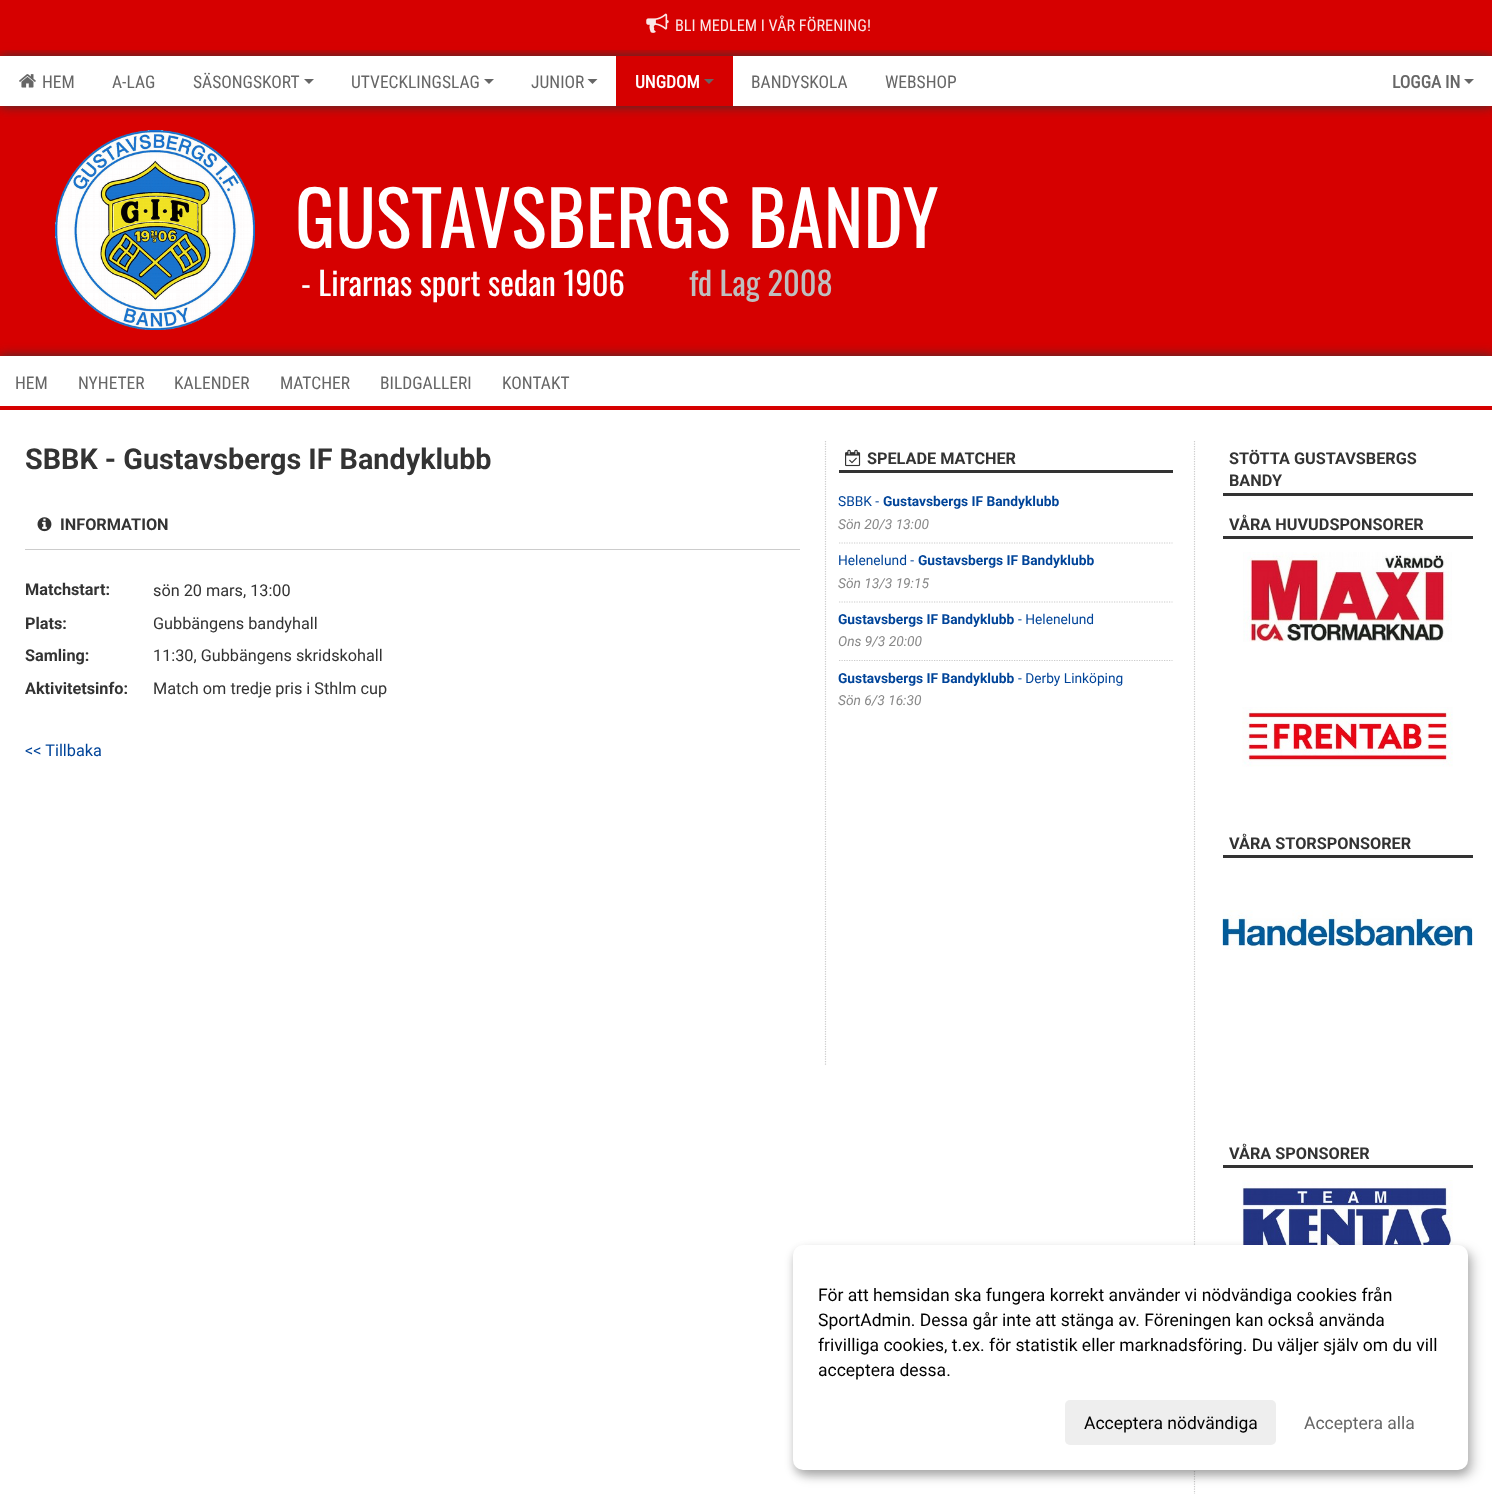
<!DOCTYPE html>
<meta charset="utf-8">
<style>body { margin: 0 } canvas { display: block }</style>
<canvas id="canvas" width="1492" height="1494"></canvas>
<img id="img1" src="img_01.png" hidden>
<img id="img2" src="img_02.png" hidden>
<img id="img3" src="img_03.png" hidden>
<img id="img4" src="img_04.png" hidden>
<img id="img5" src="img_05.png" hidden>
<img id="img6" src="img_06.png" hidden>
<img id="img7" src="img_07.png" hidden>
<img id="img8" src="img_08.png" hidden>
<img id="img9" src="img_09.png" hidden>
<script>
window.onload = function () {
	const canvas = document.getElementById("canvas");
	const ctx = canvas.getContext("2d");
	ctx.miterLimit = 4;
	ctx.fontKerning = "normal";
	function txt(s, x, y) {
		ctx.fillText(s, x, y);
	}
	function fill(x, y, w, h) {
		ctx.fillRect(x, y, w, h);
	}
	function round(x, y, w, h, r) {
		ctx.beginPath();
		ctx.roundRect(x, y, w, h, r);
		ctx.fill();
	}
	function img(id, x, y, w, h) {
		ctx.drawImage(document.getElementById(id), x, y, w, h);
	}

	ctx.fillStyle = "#D60000";
	fill(0, 0, 1492, 1494);
	ctx.fillStyle = "#333333";
	ctx.filter = "blur(6px)";
	ctx.beginPath();
	ctx.rect(0, 56, 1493, 50);
	ctx.fill();
	ctx.filter = "none";
	ctx.fillStyle = "rgba(214, 0, 0, 0.9)";
	fill(0, 43, 1492, 7);
	img("img1", 646, 13, 23, 20);
	ctx.fillStyle = "#FFFFFF";
	fill(0, 56, 1492, 50);
	img("img2", 19, 74, 17, 14);
	ctx.fillStyle = "#666666";
	ctx.beginPath();
	ctx.moveTo(304, 79);
	ctx.lineTo(314, 79);
	ctx.lineTo(309, 84);
	ctx.closePath();
	ctx.fill();
	ctx.beginPath();
	ctx.moveTo(484, 79);
	ctx.lineTo(494, 79);
	ctx.lineTo(489, 84);
	ctx.closePath();
	ctx.fill();
	ctx.beginPath();
	ctx.moveTo(587.5, 79);
	ctx.lineTo(597.5, 79);
	ctx.lineTo(592.5, 84);
	ctx.closePath();
	ctx.fill();
	ctx.fillStyle = "#D60000";
	fill(616, 56, 117, 50);
	ctx.fillStyle = "#666666";
	ctx.beginPath();
	ctx.moveTo(704, 79);
	ctx.lineTo(714, 79);
	ctx.lineTo(709, 84);
	ctx.closePath();
	ctx.fill();
	ctx.beginPath();
	ctx.moveTo(1464, 79);
	ctx.lineTo(1474, 79);
	ctx.lineTo(1469, 84);
	ctx.closePath();
	ctx.fill();
	img("img3", 55, 130, 200, 200);
	ctx.fillStyle = "#333333";
	ctx.filter = "blur(6px)";
	ctx.beginPath();
	ctx.rect(0, 356, 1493, 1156);
	ctx.fill();
	ctx.filter = "none";
	ctx.fillStyle = "#FFFFFF";
	fill(0, 356, 1492, 1138);
	ctx.fillStyle = "#D60000";
	fill(0, 406, 1492, 4);
	ctx.fillStyle = "#CCCCCC";
	fill(25, 549, 775, 1);
	img("img4", 37, 517, 15, 15);
	ctx.beginPath();
	ctx.moveTo(825.5, 441);
	ctx.lineTo(825.5, 1066);
	ctx.strokeStyle = "#CCCCCC";
	ctx.lineWidth = 1.2;
	ctx.setLineDash([1.25, 1.25]);
	ctx.stroke();
	ctx.fillStyle = "#333333";
	fill(839, 470, 334, 3);
	img("img5", 845, 449, 16, 18);
	ctx.beginPath();
	ctx.moveTo(839, 543);
	ctx.lineTo(1172.5, 543);
	ctx.stroke();
	ctx.beginPath();
	ctx.moveTo(839, 602);
	ctx.lineTo(1172.5, 602);
	ctx.stroke();
	ctx.beginPath();
	ctx.moveTo(839, 660.5);
	ctx.lineTo(1172.5, 660.5);
	ctx.stroke();
	ctx.beginPath();
	ctx.moveTo(1194.5, 441);
	ctx.lineTo(1194.5, 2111);
	ctx.stroke();
	fill(1223, 493, 250, 3);
	fill(1223, 536, 250, 3);
	img("img6", 1243, 552, 209, 90);
	img("img7", 1242, 707, 211, 60);
	fill(1223, 855, 250, 3);
	img("img8", 1222, 910, 251, 40);
	fill(1223, 1165, 250, 3);
	img("img9", 1242, 1180, 211, 65);
	ctx.fillStyle = "rgba(0, 0, 0, 0.19)";
	ctx.filter = "blur(6px)";
	ctx.beginPath();
	ctx.roundRect(799, 1251, 675, 225, 10);
	ctx.fill();
	ctx.filter = "none";
	ctx.fillStyle = "rgba(0, 0, 0, 0.2)";
	ctx.filter = "blur(4px)";
	ctx.beginPath();
	ctx.roundRect(793, 1250, 675, 225, 10);
	ctx.fill();
	ctx.filter = "none";
	ctx.fillStyle = "#FFFFFF";
	round(793, 1245, 675, 225, 10);
	ctx.fillStyle = "#EEEEEE";
	round(1065, 1400, 211, 45, 5);
	ctx.font = "16.25px Roboto Condensed";
	ctx.fillStyle = "#FBE6E6";
	txt("BLI MEDLEM I VÅR FÖRENING!", 675, 31);
	ctx.font = "17.5px Roboto Condensed";
	ctx.fillStyle = "#666666";
	txt("HEM", 42, 88);
	txt("A-LAG", 112, 88);
	txt("SÄSONGSKORT", 193, 88);
	txt("UTVECKLINGSLAG", 351, 88);
	txt("JUNIOR", 531, 88);
	ctx.font = "bold 17.5px Roboto Condensed";
	ctx.fillStyle = "#FFFFFF";
	txt("UNGDOM", 635, 88);
	ctx.font = "17.5px Roboto Condensed";
	ctx.fillStyle = "#666666";
	txt("BANDYSKOLA", 751, 88);
	txt("WEBSHOP", 885, 88);
	ctx.font = "bold 17.5px Roboto Condensed";
	txt("LOGGA IN", 1392, 88);
	ctx.font = "75px Oswald";
	ctx.fillStyle = "#FFFFFF";
	txt("GUSTAVSBERGS BANDY", 295, 248);
	ctx.font = "32.5px Oswald";
	txt("- Lirarnas sport sedan 1906", 301, 296);
	ctx.fillStyle = "#BFBFBF";
	txt("fd Lag 2008", 689, 296);
	ctx.font = "17.5px Roboto Condensed";
	ctx.fillStyle = "#666666";
	txt("HEM", 15, 389);
	txt("NYHETER", 78, 389);
	txt("KALENDER", 174, 389);
	txt("MATCHER", 280, 389);
	txt("BILDGALLERI", 380, 389);
	txt("KONTAKT", 502, 389);
	ctx.font = "bold 28.75px Roboto";
	ctx.fillStyle = "#333333";
	txt("SBBK - Gustavsbergs IF Bandyklubb", 25, 469);
	ctx.font = "bold 16.25px Roboto";
	txt("INFORMATION", 60, 530);
	txt("Matchstart:", 25, 595);
	ctx.font = "16.25px Roboto";
	txt("sön 20 mars, 13:00", 153, 596);
	ctx.font = "bold 16.25px Roboto";
	txt("Plats:", 25, 629);
	ctx.font = "16.25px Roboto";
	txt("Gubbängens bandyhall", 153, 629);
	ctx.font = "bold 16.25px Roboto";
	txt("Samling:", 25, 661);
	ctx.font = "16.25px Roboto";
	txt("11:30, Gubbängens skridskohall", 153, 661);
	ctx.font = "bold 16.25px Roboto";
	txt("Aktivitetsinfo:", 25, 694);
	ctx.font = "16.25px Roboto";
	txt("Match om tredje pris i Sthlm cup", 153, 694);
	ctx.fillStyle = "#004499";
	txt("<< Tillbaka", 25, 756);
	ctx.font = "bold 16.25px Roboto";
	ctx.fillStyle = "#333333";
	txt("SPELADE MATCHER", 867, 464);
	ctx.font = "13.75px Roboto";
	ctx.fillStyle = "#004499";
	txt("SBBK -", 838, 506);
	ctx.font = "bold 13.75px Roboto";
	txt("Gustavsbergs IF Bandyklubb", 883, 506);
	ctx.font = "italic 13.75px Roboto";
	ctx.fillStyle = "#888888";
	txt("Sön 20/3 13:00", 838, 529);
	ctx.font = "13.75px Roboto";
	ctx.fillStyle = "#004499";
	txt("Helenelund -", 838, 565);
	ctx.font = "bold 13.75px Roboto";
	txt("Gustavsbergs IF Bandyklubb", 918, 565);
	ctx.font = "italic 13.75px Roboto";
	ctx.fillStyle = "#888888";
	txt("Sön 13/3 19:15", 838, 588);
	ctx.font = "bold 13.75px Roboto";
	ctx.fillStyle = "#004499";
	txt("Gustavsbergs IF Bandyklubb", 838, 624);
	ctx.font = "13.75px Roboto";
	txt("- Helenelund", 1018, 624);
	ctx.font = "italic 13.75px Roboto";
	ctx.fillStyle = "#888888";
	txt("Ons 9/3 20:00", 838, 646);
	ctx.font = "bold 13.75px Roboto";
	ctx.fillStyle = "#004499";
	txt("Gustavsbergs IF Bandyklubb", 838, 683);
	ctx.font = "13.75px Roboto";
	txt("- Derby Linköping", 1018, 683);
	ctx.font = "italic 13.75px Roboto";
	ctx.fillStyle = "#888888";
	txt("Sön 6/3 16:30", 838, 705);
	ctx.font = "bold 16.25px Roboto";
	ctx.fillStyle = "#333333";
	txt("STÖTTA GUSTAVSBERGS", 1229, 464);
	txt("BANDY", 1229, 486);
	txt("VÅRA HUVUDSPONSORER", 1229, 530);
	txt("VÅRA STORSPONSORER", 1229, 849);
	txt("VÅRA SPONSORER", 1229, 1159);
	ctx.font = "17.5px Roboto";
	ctx.fillStyle = "#000000";
	txt("För att hemsidan ska fungera korrekt använder vi nödvändiga cookies från", 818, 1301);
	txt("SportAdmin. Dessa går inte att stänga av. Föreningen kan också använda", 818, 1326);
	txt("frivilliga cookies, t.ex. för statistik eller marknadsföring. Du väljer själv om du vill", 818, 1351);
	txt("acceptera dessa.", 818, 1376);
	txt("Acceptera nödvändiga", 1084, 1429);
	ctx.fillStyle = "#666666";
	txt("Acceptera alla", 1304, 1429);
};
</script>
